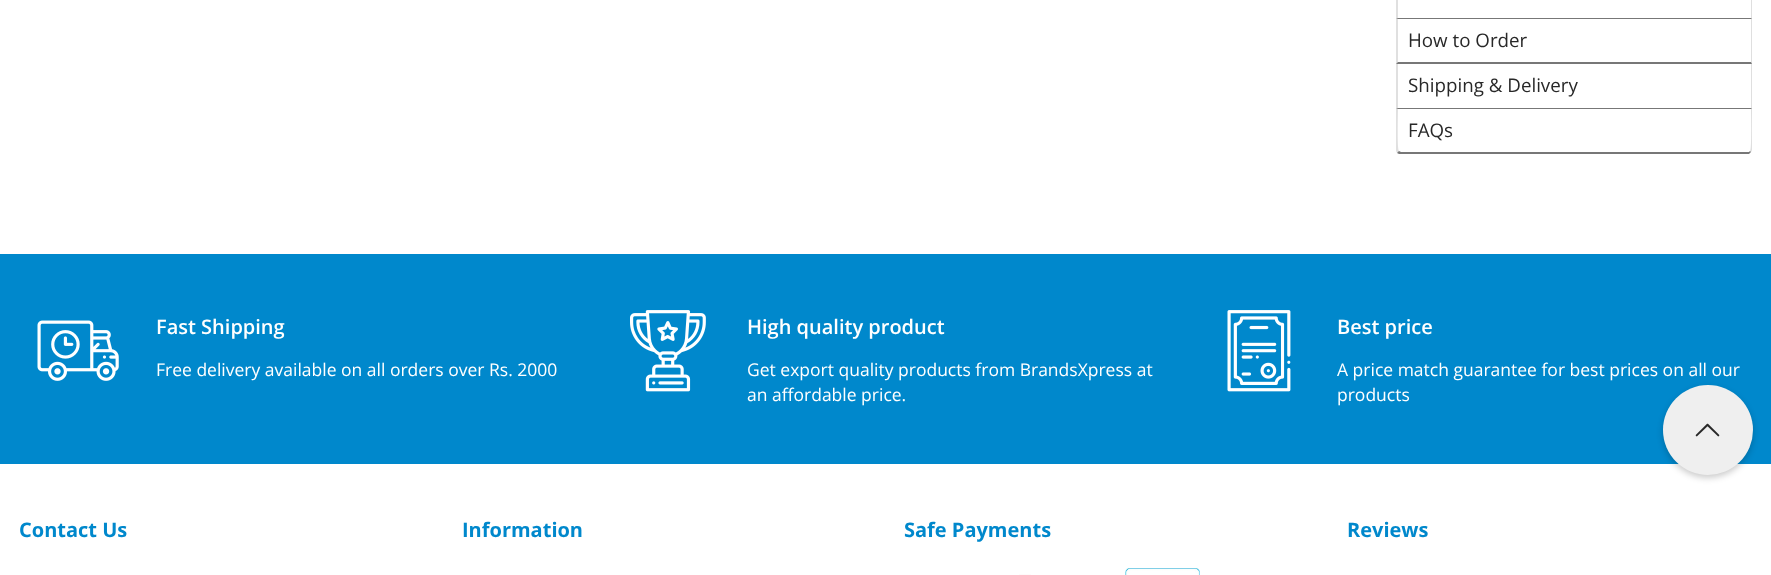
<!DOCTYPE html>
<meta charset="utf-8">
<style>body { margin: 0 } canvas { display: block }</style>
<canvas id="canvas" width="1771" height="575"></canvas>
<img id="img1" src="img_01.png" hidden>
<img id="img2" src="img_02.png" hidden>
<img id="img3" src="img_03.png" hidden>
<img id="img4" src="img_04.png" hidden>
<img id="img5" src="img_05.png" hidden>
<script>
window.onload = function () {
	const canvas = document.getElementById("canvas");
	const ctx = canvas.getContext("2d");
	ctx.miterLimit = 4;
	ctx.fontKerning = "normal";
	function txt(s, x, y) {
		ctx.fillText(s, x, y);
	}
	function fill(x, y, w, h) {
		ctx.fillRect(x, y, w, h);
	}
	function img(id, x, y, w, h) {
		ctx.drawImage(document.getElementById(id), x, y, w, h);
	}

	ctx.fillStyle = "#FFFFFF";
	fill(0, 0, 1771, 575);
	ctx.fillStyle = "#DFDFDF";
	ctx.beginPath();
	ctx.moveTo(1752, -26);
	ctx.lineTo(1752, 19);
	ctx.lineTo(1751, 18);
	ctx.lineTo(1751, -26);
	ctx.closePath();
	ctx.fill();
	ctx.fillStyle = "#777777";
	ctx.beginPath();
	ctx.moveTo(1752, 19);
	ctx.lineTo(1396, 19);
	ctx.lineTo(1398, 18);
	ctx.lineTo(1751, 18);
	ctx.closePath();
	ctx.fill();
	ctx.fillStyle = "rgba(0, 0, 0, 0.12)";
	ctx.beginPath();
	ctx.moveTo(1396, 19);
	ctx.lineTo(1396, -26);
	ctx.lineTo(1398, -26);
	ctx.lineTo(1398, 18);
	ctx.closePath();
	ctx.fill();
	ctx.fillStyle = "#DFDFDF";
	ctx.beginPath();
	ctx.moveTo(1752, 19);
	ctx.lineTo(1752, 64);
	ctx.lineTo(1751, 62);
	ctx.lineTo(1751, 19);
	ctx.closePath();
	ctx.fill();
	ctx.fillStyle = "#777777";
	ctx.beginPath();
	ctx.moveTo(1752, 64);
	ctx.lineTo(1396, 64);
	ctx.lineTo(1398, 62);
	ctx.lineTo(1751, 62);
	ctx.closePath();
	ctx.fill();
	ctx.fillStyle = "rgba(0, 0, 0, 0.12)";
	ctx.beginPath();
	ctx.moveTo(1396, 64);
	ctx.lineTo(1396, 19);
	ctx.lineTo(1398, 19);
	ctx.lineTo(1398, 62);
	ctx.closePath();
	ctx.fill();
	ctx.fillStyle = "#DFDFDF";
	ctx.beginPath();
	ctx.moveTo(1752, 64);
	ctx.lineTo(1752, 109);
	ctx.lineTo(1751, 108);
	ctx.lineTo(1751, 64);
	ctx.closePath();
	ctx.fill();
	ctx.fillStyle = "#777777";
	ctx.beginPath();
	ctx.moveTo(1752, 109);
	ctx.lineTo(1396, 109);
	ctx.lineTo(1398, 108);
	ctx.lineTo(1751, 108);
	ctx.closePath();
	ctx.fill();
	ctx.fillStyle = "rgba(0, 0, 0, 0.12)";
	ctx.beginPath();
	ctx.moveTo(1396, 109);
	ctx.lineTo(1396, 64);
	ctx.lineTo(1398, 64);
	ctx.lineTo(1398, 108);
	ctx.closePath();
	ctx.fill();
	ctx.fillStyle = "#DFDFDF";
	ctx.beginPath();
	ctx.moveTo(1751, 152);
	ctx.bezierCurveTo(1752, 151, 1752, 150, 1752, 149);
	ctx.lineTo(1752, 109);
	ctx.lineTo(1751, 109);
	ctx.bezierCurveTo(1751, 114, 1752, 150, 1750, 151);
	ctx.closePath();
	ctx.fill();
	ctx.fillStyle = "#777777";
	ctx.beginPath();
	ctx.moveTo(1399, 154);
	ctx.lineTo(1397, 153);
	ctx.lineTo(1399, 151);
	ctx.lineTo(1401, 152);
	ctx.lineTo(1749, 152);
	ctx.lineTo(1750, 151);
	ctx.lineTo(1751, 152);
	ctx.lineTo(1749, 154);
	ctx.closePath();
	ctx.fill();
	ctx.fillStyle = "rgba(0, 0, 0, 0.12)";
	ctx.beginPath();
	ctx.moveTo(1398, 109);
	ctx.bezierCurveTo(1398, 114, 1397, 149, 1399, 151);
	ctx.lineTo(1397, 153);
	ctx.lineTo(1396, 151);
	ctx.lineTo(1396, 109);
	ctx.closePath();
	ctx.fill();
	ctx.fillStyle = "#0088CC";
	fill(0, 254, 1771, 210);
	img("img1", 37, 320, 82, 61);
	img("img2", 630, 310, 76, 82);
	img("img3", 1227, 310, 64, 82);
	ctx.fillStyle = "#FEFAFA";
	fill(1019, 574, 12, 1);
	img("img4", 1125, 568, 75, 7);
	ctx.fillStyle = "rgba(0, 0, 0, 0.2)";
	ctx.filter = "blur(3px)";
	ctx.beginPath();
	ctx.roundRect(1663, 388, 90, 90, 45);
	ctx.fill();
	ctx.filter = "none";
	ctx.fillStyle = "#EFEFEF";
	ctx.beginPath();
	ctx.arc(1708, 430, 45, 0, Math.PI * 2);
	ctx.fill();
	img("img5", 1695, 423, 25, 14);
	ctx.font = "18.75px Open Sans";
	ctx.fillStyle = "#282828";
	txt("How to Order", 1408, 47);
	txt("Shipping & Delivery", 1408, 92);
	txt("FAQs", 1408, 137);
	ctx.font = "600 20px Open Sans";
	ctx.fillStyle = "#FFFFFF";
	txt("Fast Shipping", 156, 334);
	ctx.font = "17.5px Open Sans";
	txt("Free delivery available on all orders over Rs. 2000", 156, 376);
	ctx.font = "600 20px Open Sans";
	txt("High quality product", 747, 334);
	ctx.font = "17.5px Open Sans";
	txt("Get export quality products from BrandsXpress at", 747, 376);
	txt("an affordable price.", 747, 401);
	ctx.font = "600 20px Open Sans";
	txt("Best price", 1337, 334);
	ctx.font = "17.5px Open Sans";
	txt("A price match guarantee for best prices on all our", 1337, 376);
	txt("products", 1337, 401);
	ctx.font = "bold 20px Open Sans";
	ctx.fillStyle = "#0088CC";
	txt("Contact Us", 19, 537);
	txt("Information", 462, 537);
	txt("Safe Payments", 904, 537);
	txt("Reviews", 1347, 537);
};
</script>
